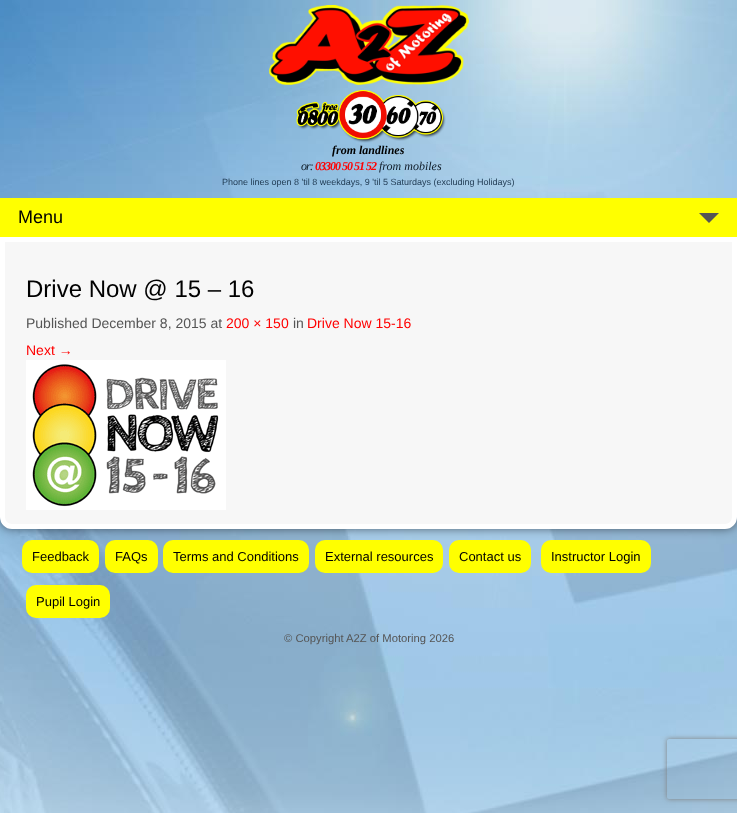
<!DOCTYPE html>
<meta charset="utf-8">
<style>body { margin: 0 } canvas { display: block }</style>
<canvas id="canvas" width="737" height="813"></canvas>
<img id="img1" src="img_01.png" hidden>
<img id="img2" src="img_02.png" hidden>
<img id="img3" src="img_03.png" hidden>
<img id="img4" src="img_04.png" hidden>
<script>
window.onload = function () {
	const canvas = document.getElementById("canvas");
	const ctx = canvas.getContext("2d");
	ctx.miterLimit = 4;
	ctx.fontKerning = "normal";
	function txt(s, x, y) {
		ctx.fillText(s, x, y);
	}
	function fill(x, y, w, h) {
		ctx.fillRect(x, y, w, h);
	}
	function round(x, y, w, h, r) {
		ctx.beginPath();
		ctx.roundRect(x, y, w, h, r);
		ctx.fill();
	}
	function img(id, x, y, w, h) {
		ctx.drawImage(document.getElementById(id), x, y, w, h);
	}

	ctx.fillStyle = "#FFFFFF";
	fill(0, 0, 737, 813);
	img("img1", 0, 0, 737, 813);
	img("img2", 269, 5, 200, 80);
	img("img3", 296, 90, 150, 53);
	ctx.fillStyle = "rgba(0, 0, 0, 0.5)";
	ctx.filter = "blur(5px)";
	ctx.beginPath();
	ctx.roundRect(0, 237, 737, 292, 12);
	ctx.fill();
	ctx.filter = "none";
	ctx.fillStyle = "#FFFF00";
	fill(0, 198, 737, 39);
	ctx.fillStyle = "#555555";
	ctx.beginPath();
	ctx.moveTo(699, 213);
	ctx.lineTo(719, 213);
	ctx.lineTo(709, 223);
	ctx.closePath();
	ctx.fill();
	ctx.fillStyle = "#F7F7F7";
	ctx.beginPath();
	ctx.roundRect(2.5, 239.5, 732, 287, [0, 0, 9.5, 9.5]);
	ctx.fill();
	ctx.strokeStyle = "#FFFFFF";
	ctx.lineWidth = 5;
	ctx.stroke();
	img("img4", 26, 360, 200, 150);
	ctx.fillStyle = "#FFFF00";
	round(22, 540, 77, 33, 10);
	round(105, 540, 53, 33, 10);
	round(163, 540, 146, 33, 10);
	round(315, 540, 128, 33, 10);
	round(449, 540, 82, 33, 10);
	round(541, 540, 110, 33, 10);
	round(26, 585, 84, 33, 10);
	ctx.save();
	ctx.beginPath();
	ctx.moveTo(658, 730);
	ctx.lineTo(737, 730);
	ctx.lineTo(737, 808);
	ctx.lineTo(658, 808);
	ctx.closePath();
	ctx.moveTo(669, 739);
	ctx.lineTo(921, 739);
	ctx.bezierCurveTo(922, 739, 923, 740, 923, 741);
	ctx.lineTo(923, 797);
	ctx.bezierCurveTo(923, 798, 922, 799, 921, 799);
	ctx.lineTo(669, 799);
	ctx.bezierCurveTo(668, 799, 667, 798, 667, 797);
	ctx.lineTo(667, 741);
	ctx.bezierCurveTo(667, 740, 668, 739, 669, 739);
	ctx.closePath();
	ctx.clip("evenodd");
	ctx.fillStyle = "#808080";
	ctx.filter = "blur(2.5px)";
	ctx.beginPath();
	ctx.roundRect(667, 739, 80, 60, 2);
	ctx.fill();
	ctx.filter = "none";
	ctx.restore();
	ctx.font = "italic bold 12px Liberation Serif";
	ctx.fillStyle = "#000000";
	txt("from landlines", 332, 154);
	ctx.letterSpacing = "-1px";
	ctx.font = "italic 12px Liberation Serif";
	ctx.fillStyle = "#0F1C28";
	txt("or:", 301, 170);
	ctx.font = "italic bold 12px Liberation Serif";
	ctx.fillStyle = "#FF0000";
	txt("03300 50 51 52", 315, 170);
	ctx.letterSpacing = "0px";
	ctx.font = "italic 12px Liberation Serif";
	ctx.fillStyle = "#0F1C28";
	txt("from mobiles", 379, 170);
	ctx.font = "9px Liberation Sans";
	ctx.fillStyle = "#1E3951";
	txt("Phone lines open 8 'til 8 weekdays, 9 'til 5 Saturdays (excluding Holidays)", 222, 185);
	ctx.font = "18px Liberation Sans";
	ctx.fillStyle = "#000000";
	txt("Menu", 18, 223);
	ctx.font = "24px Liberation Sans";
	txt("Drive Now @ 15 – 16", 26, 297);
	ctx.font = "14px Liberation Sans";
	ctx.fillStyle = "#555555";
	txt("Published December 8, 2015 at", 26, 328);
	ctx.fillStyle = "#FF0000";
	txt("200 × 150", 226, 328);
	ctx.fillStyle = "#555555";
	txt("in", 293, 328);
	ctx.fillStyle = "#FF0000";
	txt("Drive Now 15-16", 307, 328);
	txt("Next →", 26, 355);
	ctx.font = "13px Liberation Sans";
	ctx.fillStyle = "#000000";
	txt("Feedback", 32, 561);
	txt("FAQs", 115, 561);
	txt("Terms and Conditions", 173, 561);
	txt("External resources", 325, 561);
	txt("Contact us", 459, 561);
	txt("Instructor Login", 551, 561);
	txt("Pupil Login", 36, 606);
	ctx.font = "11.25px Liberation Sans";
	ctx.fillStyle = "#555555";
	txt("© Copyright A2Z of Motoring 2026", 284, 642);
};
</script>
